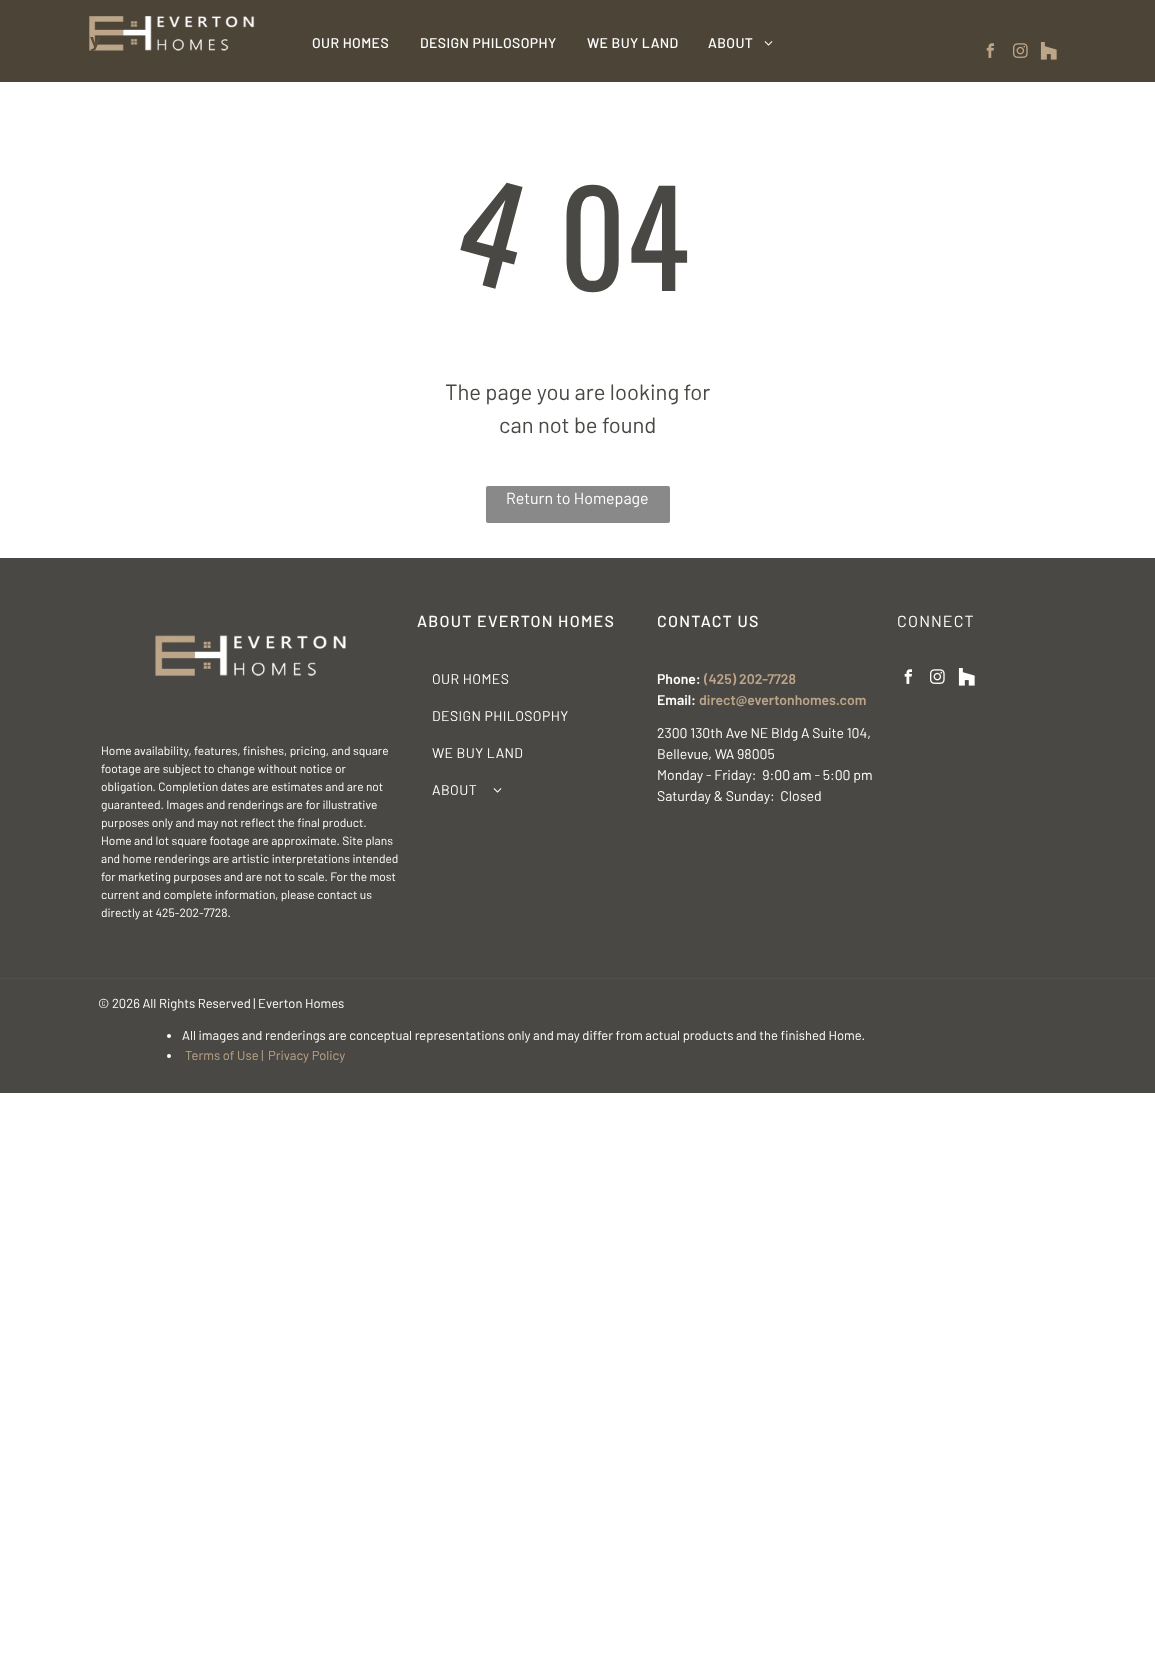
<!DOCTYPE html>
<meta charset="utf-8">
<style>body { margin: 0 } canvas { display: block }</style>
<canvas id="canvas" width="1155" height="1660"></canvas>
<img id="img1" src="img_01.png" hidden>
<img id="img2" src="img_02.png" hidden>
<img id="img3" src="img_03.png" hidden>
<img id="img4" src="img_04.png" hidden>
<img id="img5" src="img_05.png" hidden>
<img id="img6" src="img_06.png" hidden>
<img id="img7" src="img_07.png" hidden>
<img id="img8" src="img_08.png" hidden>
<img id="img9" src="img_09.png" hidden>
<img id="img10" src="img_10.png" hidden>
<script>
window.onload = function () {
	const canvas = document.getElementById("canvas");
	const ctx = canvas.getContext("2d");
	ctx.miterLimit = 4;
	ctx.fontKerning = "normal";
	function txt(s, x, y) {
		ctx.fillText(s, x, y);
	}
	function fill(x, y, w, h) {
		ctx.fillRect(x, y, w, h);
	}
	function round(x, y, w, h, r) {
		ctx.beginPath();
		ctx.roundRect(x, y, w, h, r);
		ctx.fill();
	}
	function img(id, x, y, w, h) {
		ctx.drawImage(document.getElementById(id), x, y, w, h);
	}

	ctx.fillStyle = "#FFFFFF";
	fill(0, 0, 1155, 1660);
	ctx.fillStyle = "#4C4437";
	fill(0, 0, 1155, 82);
	img("img1", 89, 16, 166, 35);
	img("img2", 764, 41, 9, 5);
	img("img3", 986, 43, 8, 15);
	img("img4", 1013, 43, 15, 15);
	img("img5", 1040, 42, 17, 18);
	ctx.fillStyle = "#898989";
	round(486, 486, 184, 37, 2);
	ctx.fillStyle = "#4A4844";
	fill(0, 558, 1155, 420);
	ctx.fillStyle = "#514F4C";
	fill(0, 978, 1155, 1);
	img("img6", 493, 788, 9, 5);
	img("img7", 904, 669, 8, 15);
	img("img8", 930, 669, 15, 15);
	img("img9", 958, 668, 17, 18);
	img("img10", 155, 635, 191, 41);
	ctx.fillStyle = "#4A4844";
	fill(0, 979, 1155, 114);
	ctx.fillStyle = "#FFFFFF";
	ctx.beginPath();
	ctx.arc(169, 1036, 2, 0, Math.PI * 2);
	ctx.fill();
	ctx.beginPath();
	ctx.arc(169, 1056, 2, 0, Math.PI * 2);
	ctx.fill();
	ctx.font = "bold 19px Liberation Sans";
	ctx.fillStyle = "#584E3F";
	txt("y", 90, 47);
	ctx.letterSpacing = "0.4px";
	ctx.font = "500 14px Barlow";
	ctx.fillStyle = "#FFFFFF";
	txt("OUR HOMES", 312, 48);
	txt("DESIGN PHILOSOPHY", 420, 48);
	txt("WE BUY LAND", 587, 48);
	txt("ABOUT", 708, 48);
	ctx.letterSpacing = "0px";
	ctx.font = "130px Oswald";
	ctx.fillStyle = "#4A4844";
	ctx.save();
	ctx.translate(448, 276);
	ctx.rotate(15 * Math.PI / 180);
	ctx.fillText("4", 0, 0);
	ctx.restore();
	txt("04", 559, 291);
	ctx.font = "22px Barlow";
	txt("The page you are looking for", 445, 400);
	txt("can not be found", 499, 433);
	ctx.font = "16px Barlow";
	ctx.fillStyle = "#FFFFFF";
	txt("Return to Homepage", 506, 504);
	ctx.letterSpacing = "1.25px";
	ctx.font = "500 16px Barlow";
	txt("ABOUT EVERTON HOMES", 417, 627);
	ctx.letterSpacing = "0.4px";
	ctx.font = "14px Barlow";
	txt("OUR HOMES", 432, 684);
	txt("DESIGN PHILOSOPHY", 432, 721);
	txt("WE BUY LAND", 432, 758);
	txt("ABOUT", 432, 795);
	ctx.letterSpacing = "1.25px";
	ctx.font = "500 16px Barlow";
	txt("CONTACT US", 657, 627);
	ctx.letterSpacing = "0px";
	ctx.font = "600 14px Barlow";
	txt("Phone:", 657, 684);
	ctx.fillStyle = "#BDA588";
	txt("(425) 202-7728", 704, 684);
	ctx.fillStyle = "#FFFFFF";
	txt("Email:", 657, 705);
	ctx.fillStyle = "#BDA588";
	txt("direct@evertonhomes.com", 699, 705);
	ctx.font = "14px Barlow";
	ctx.fillStyle = "#FFFFFF";
	txt("2300 130th Ave NE Bldg A Suite 104,", 657, 738);
	txt("Bellevue, WA 98005", 657, 759);
	txt("Monday - Friday:  9:00 am - 5:00 pm", 657, 780);
	txt("Saturday & Sunday:  Closed", 657, 801);
	ctx.letterSpacing = "1.25px";
	ctx.font = "16px Barlow";
	txt("CONNECT", 897, 627);
	ctx.letterSpacing = "0px";
	ctx.font = "12px Barlow";
	txt("Home availability, features, finishes, pricing, and square", 101, 755);
	txt("footage are subject to change without notice or", 101, 773);
	txt("obligation. Completion dates are estimates and are not", 101, 791);
	txt("guaranteed. Images and renderings are for illustrative", 101, 809);
	txt("purposes only and may not reflect the final product.", 101, 827);
	txt("Home and lot square footage are approximate. Site plans", 101, 845);
	txt("and home renderings are artistic interpretations intended", 101, 863);
	txt("for marketing purposes and are not to scale. For the most", 101, 881);
	txt("current and complete information, please contact us", 101, 899);
	txt("directly at 425-202-7728.", 101, 917);
	ctx.font = "13px Barlow";
	txt("© 2026 All Rights Reserved | Everton Homes", 98, 1008);
	txt("All images and renderings are conceptual representations only and may differ from actual products and the finished Home.", 182, 1040);
	ctx.fillStyle = "#BDA588";
	txt("Terms of Use |", 185, 1060);
	txt("Privacy Policy", 268, 1060);
};
</script>
